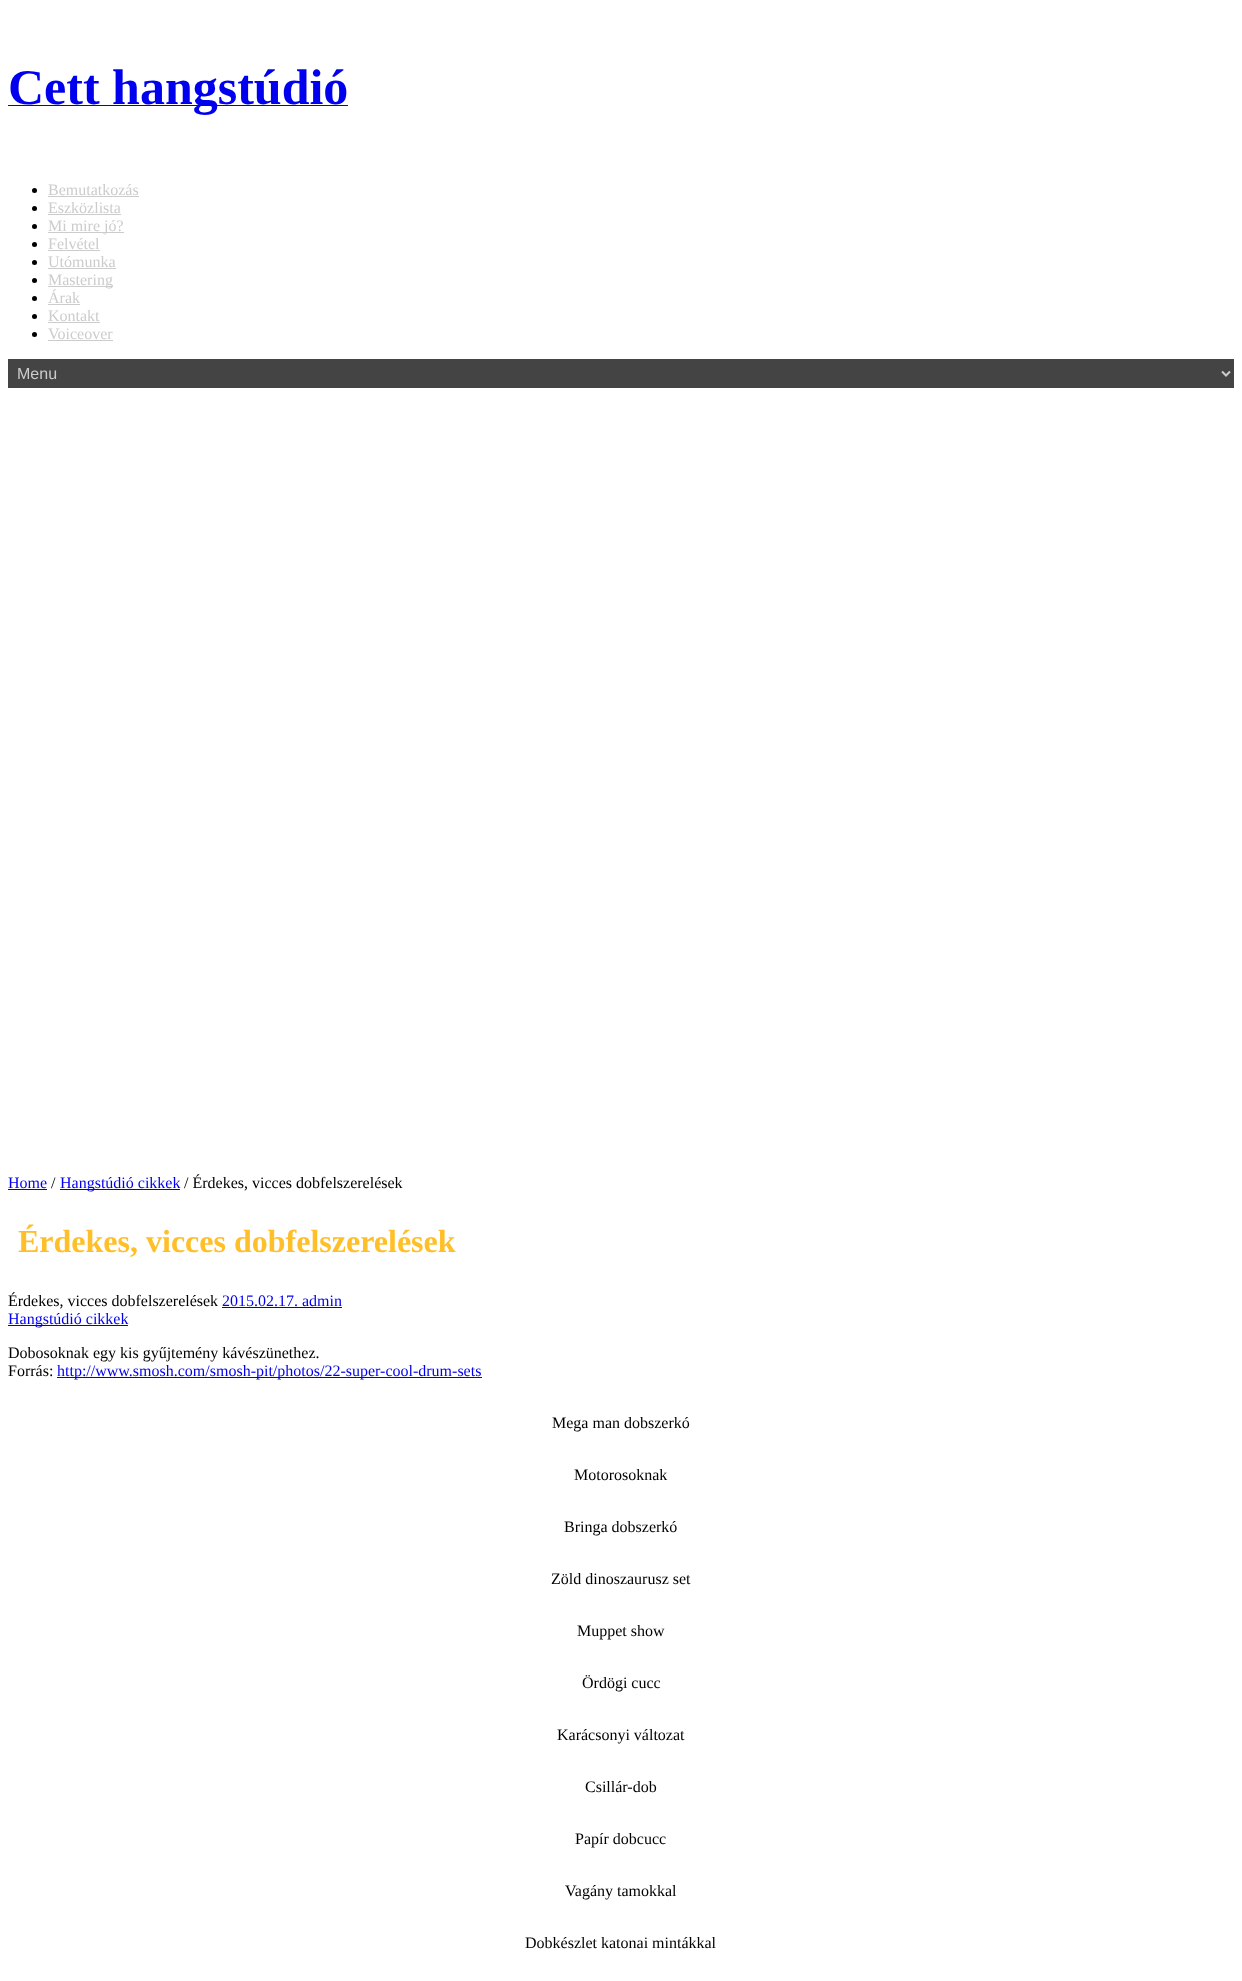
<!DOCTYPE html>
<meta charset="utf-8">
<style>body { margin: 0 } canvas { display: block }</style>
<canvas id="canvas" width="1242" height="1981"></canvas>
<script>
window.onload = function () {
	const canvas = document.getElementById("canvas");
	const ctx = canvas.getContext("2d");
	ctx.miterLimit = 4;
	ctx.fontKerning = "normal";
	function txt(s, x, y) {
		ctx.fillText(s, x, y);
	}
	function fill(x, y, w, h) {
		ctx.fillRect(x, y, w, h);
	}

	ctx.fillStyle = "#FFFFFF";
	fill(0, 0, 1242, 1981);
	ctx.fillStyle = "#0000EE";
	fill(8, 105, 340, 1);
	ctx.fillStyle = "#000000";
	ctx.beginPath();
	ctx.arc(34.5, 190.5, 2.5, 0, Math.PI * 2);
	ctx.fill();
	ctx.fillStyle = "#CCCCCC";
	fill(48, 196, 91, 1);
	ctx.fillStyle = "#000000";
	ctx.beginPath();
	ctx.arc(34.5, 208.5, 2.5, 0, Math.PI * 2);
	ctx.fill();
	ctx.fillStyle = "#CCCCCC";
	fill(48, 214, 73, 1);
	ctx.fillStyle = "#000000";
	ctx.beginPath();
	ctx.arc(34.5, 226.5, 2.5, 0, Math.PI * 2);
	ctx.fill();
	ctx.fillStyle = "#CCCCCC";
	fill(48, 232, 76, 1);
	ctx.fillStyle = "#000000";
	ctx.beginPath();
	ctx.arc(34.5, 244.5, 2.5, 0, Math.PI * 2);
	ctx.fill();
	ctx.fillStyle = "#CCCCCC";
	fill(48, 250, 52, 1);
	ctx.fillStyle = "#000000";
	ctx.beginPath();
	ctx.arc(34.5, 262.5, 2.5, 0, Math.PI * 2);
	ctx.fill();
	ctx.fillStyle = "#CCCCCC";
	fill(48, 268, 68, 1);
	ctx.fillStyle = "#000000";
	ctx.beginPath();
	ctx.arc(34.5, 280.5, 2.5, 0, Math.PI * 2);
	ctx.fill();
	ctx.fillStyle = "#CCCCCC";
	fill(48, 286, 65, 1);
	ctx.fillStyle = "#000000";
	ctx.beginPath();
	ctx.arc(34.5, 298.5, 2.5, 0, Math.PI * 2);
	ctx.fill();
	ctx.fillStyle = "#CCCCCC";
	fill(48, 304, 32, 1);
	ctx.fillStyle = "#000000";
	ctx.beginPath();
	ctx.arc(34.5, 316.5, 2.5, 0, Math.PI * 2);
	ctx.fill();
	ctx.fillStyle = "#CCCCCC";
	fill(48, 322, 52, 1);
	ctx.fillStyle = "#000000";
	ctx.beginPath();
	ctx.arc(34.5, 334.5, 2.5, 0, Math.PI * 2);
	ctx.fill();
	ctx.fillStyle = "#CCCCCC";
	fill(48, 340, 65, 1);
	ctx.fillStyle = "#444444";
	fill(8, 359, 1226, 29);
	ctx.beginPath();
	ctx.moveTo(1222, 371.5);
	ctx.lineTo(1226, 375.5);
	ctx.lineTo(1230, 371.5);
	ctx.strokeStyle = "#CCCCCC";
	ctx.lineWidth = 2;
	ctx.stroke();
	ctx.fillStyle = "#0000EE";
	fill(8, 1189, 39, 1);
	fill(60, 1189, 120, 1);
	fill(222, 1307, 120, 1);
	fill(8, 1325, 120, 1);
	fill(57, 1377, 425, 1);
	ctx.font = "bold 50px Liberation Serif";
	txt("Cett hangstúdió", 8, 104);
	ctx.font = "16px Liberation Serif";
	ctx.fillStyle = "#CCCCCC";
	txt("Bemutatkozás", 48, 195);
	txt("Eszközlista", 48, 213);
	txt("Mi mire jó?", 48, 231);
	txt("Felvétel", 48, 249);
	txt("Utómunka", 48, 267);
	txt("Mastering", 48, 285);
	txt("Árak", 48, 303);
	txt("Kontakt", 48, 321);
	txt("Voiceover", 48, 339);
	ctx.font = "16px Liberation Sans";
	txt("Menu", 17, 379);
	ctx.font = "16px Liberation Serif";
	ctx.fillStyle = "#0000EE";
	txt("Home", 8, 1188);
	ctx.fillStyle = "#000000";
	txt("/", 51, 1188);
	ctx.fillStyle = "#0000EE";
	txt("Hangstúdió cikkek", 60, 1188);
	ctx.fillStyle = "#000000";
	txt("/ Érdekes, vicces dobfelszerelések", 184, 1188);
	ctx.font = "bold 32px Liberation Serif";
	ctx.fillStyle = "#FFBF28";
	txt("Érdekes, vicces dobfelszerelések", 18, 1252);
	ctx.font = "16px Liberation Serif";
	ctx.fillStyle = "#000000";
	txt("Érdekes, vicces dobfelszerelések", 8, 1306);
	ctx.fillStyle = "#0000EE";
	txt("2015.02.17. admin", 222, 1306);
	txt("Hangstúdió cikkek", 8, 1324);
	ctx.fillStyle = "#000000";
	txt("Dobosoknak egy kis gyűjtemény kávészünethez.", 8, 1358);
	txt("Forrás:", 8, 1376);
	ctx.fillStyle = "#0000EE";
	txt("http://www.smosh.com/smosh-pit/photos/22-super-cool-drum-sets", 57, 1376);
	ctx.fillStyle = "#000000";
	txt("Mega man dobszerkó", 552, 1428);
	txt("Motorosoknak", 574, 1480);
	txt("Bringa dobszerkó", 564, 1532);
	txt("Zöld dinoszaurusz set", 551, 1584);
	txt("Muppet show", 577, 1636);
	txt("Ördögi cucc", 582, 1688);
	txt("Karácsonyi változat", 557, 1740);
	txt("Csillár-dob", 585, 1792);
	txt("Papír dobcucc", 575, 1844);
	txt("Vagány tamokkal", 565, 1896);
	txt("Dobkészlet katonai mintákkal", 525, 1948);
};
</script>
